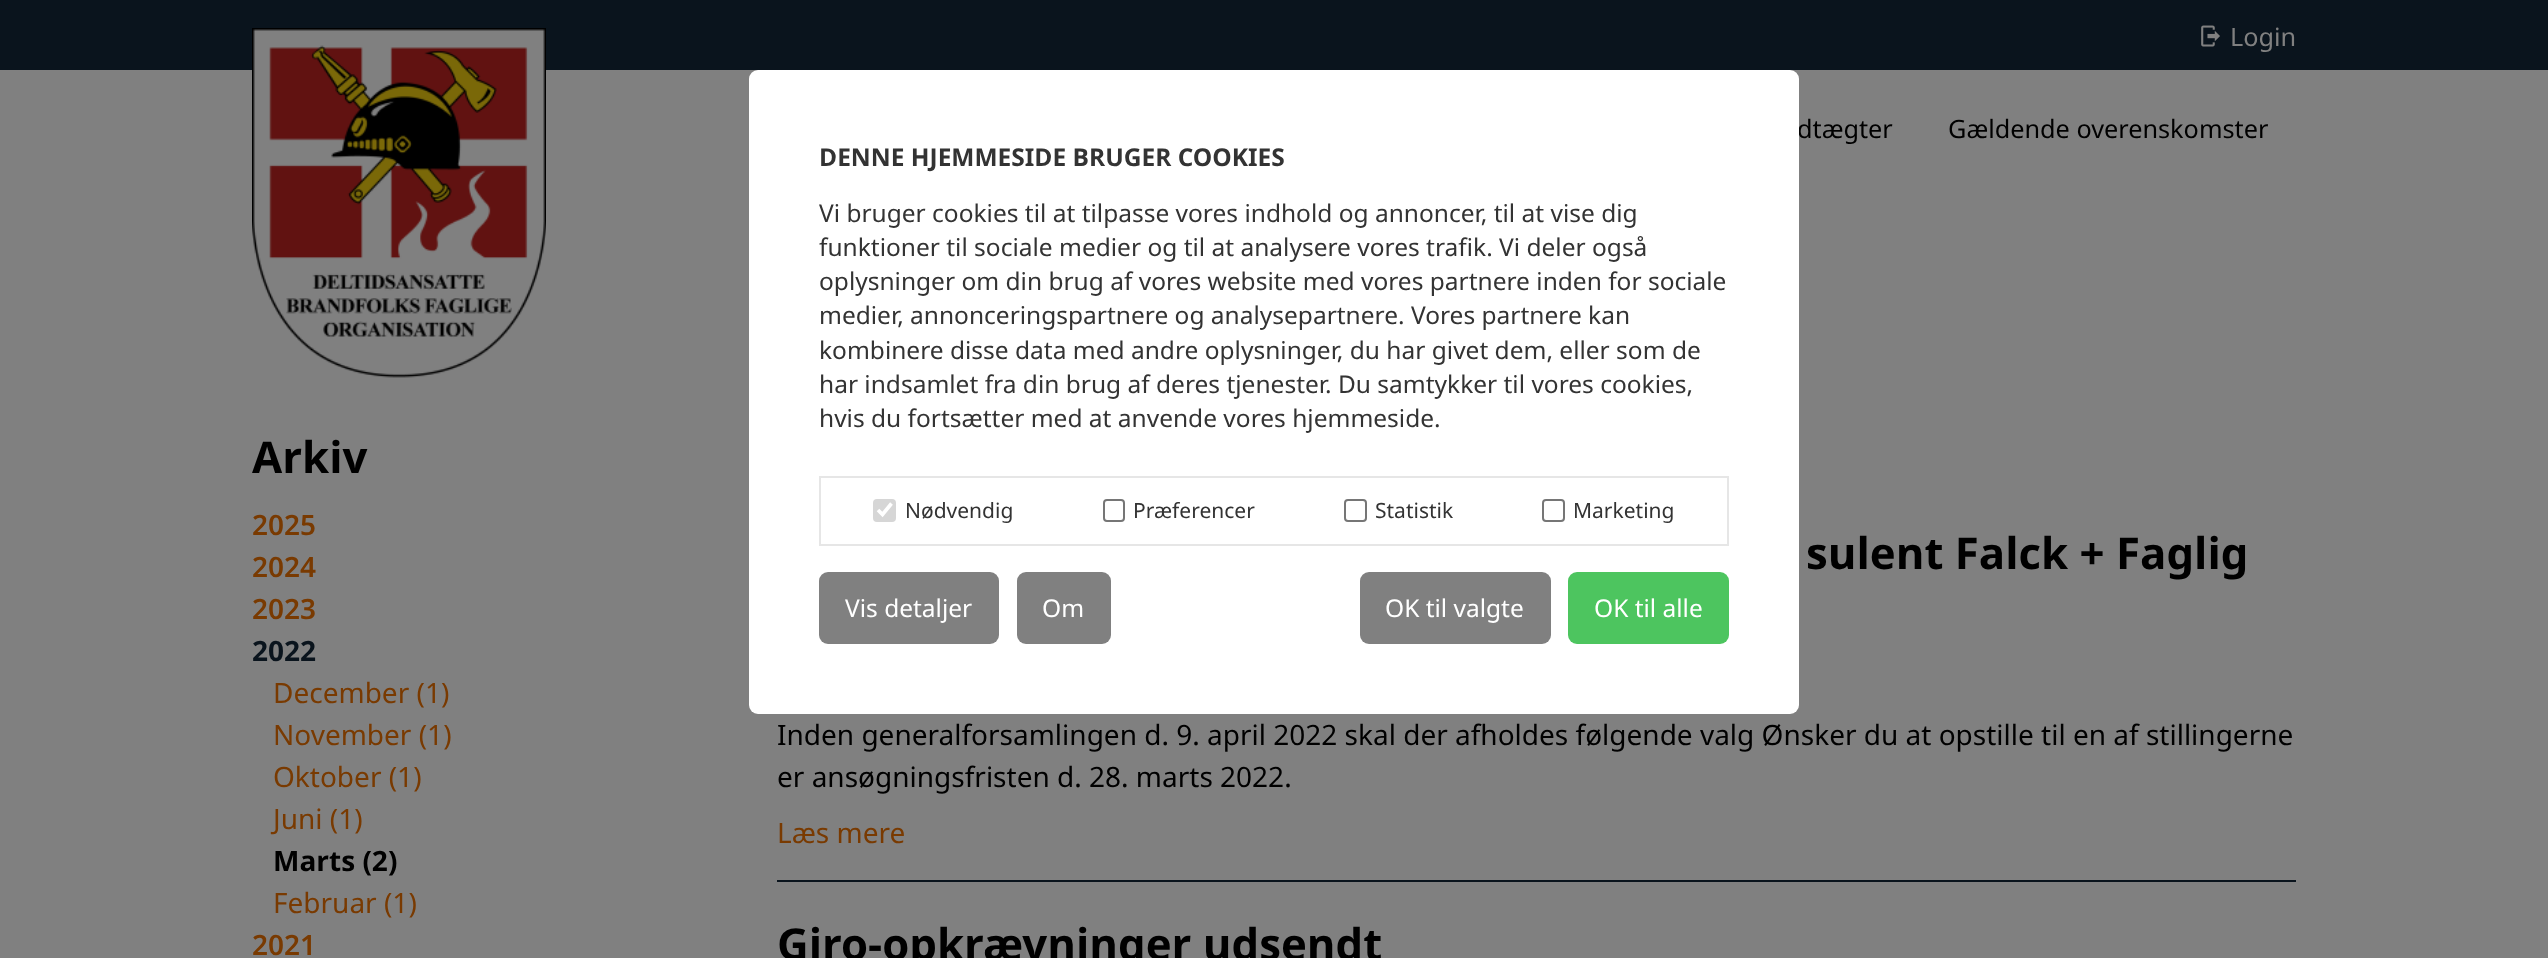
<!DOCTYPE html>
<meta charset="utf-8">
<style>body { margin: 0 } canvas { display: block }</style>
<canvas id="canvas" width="2548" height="958"></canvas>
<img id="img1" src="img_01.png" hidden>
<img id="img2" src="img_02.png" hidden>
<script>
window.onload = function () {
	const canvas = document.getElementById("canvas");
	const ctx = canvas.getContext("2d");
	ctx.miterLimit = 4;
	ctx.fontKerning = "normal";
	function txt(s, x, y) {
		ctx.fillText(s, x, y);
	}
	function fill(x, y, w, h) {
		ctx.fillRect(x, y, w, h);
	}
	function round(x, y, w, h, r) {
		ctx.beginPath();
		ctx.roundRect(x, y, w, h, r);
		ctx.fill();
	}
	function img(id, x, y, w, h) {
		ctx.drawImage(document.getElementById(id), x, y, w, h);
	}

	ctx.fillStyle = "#808080";
	fill(0, 0, 2548, 958);
	ctx.fillStyle = "#0A141D";
	fill(0, 0, 2548, 70);
	img("img1", 2201, 25, 19, 22);
	img("img2", 252, 28, 294, 350);
	fill(777, 880, 1519, 2);
	ctx.font = "25.25px Noto Sans";
	ctx.fillStyle = "#808080";
	txt("Login", 2230, 46);
	ctx.fillStyle = "#000000";
	txt("dtægter", 1797, 138);
	txt("Gældende overenskomster", 1948, 138);
	ctx.font = "bold 43.75px Noto Sans";
	txt("Arkiv", 252, 473);
	ctx.font = "600 28px Noto Sans";
	ctx.fillStyle = "#793A01";
	txt("2025", 252, 535);
	txt("2024", 252, 577);
	txt("2023", 252, 619);
	ctx.font = "bold 28px Noto Sans";
	ctx.fillStyle = "#0A141D";
	txt("2022", 252, 661);
	ctx.font = "28px Noto Sans";
	ctx.fillStyle = "#793A01";
	txt("December (1)", 273, 703);
	txt("November (1)", 273, 745);
	txt("Oktober (1)", 273, 787);
	txt("Juni (1)", 273, 829);
	ctx.font = "bold 28px Noto Sans";
	ctx.fillStyle = "#000000";
	txt("Marts (2)", 273, 871);
	ctx.font = "28px Noto Sans";
	ctx.fillStyle = "#793A01";
	txt("Februar (1)", 273, 913);
	ctx.font = "600 28px Noto Sans";
	txt("2021", 252, 955);
	ctx.font = "bold 43.75px Noto Sans";
	ctx.fillStyle = "#000000";
	txt("sulent Falck + Faglig", 1806, 569);
	ctx.font = "28px Noto Sans";
	txt("Inden generalforsamlingen d. 9. april 2022 skal der afholdes følgende valg Ønsker du at opstille til en af stillingerne", 777, 745);
	txt("er ansøgningsfristen d. 28. marts 2022.", 777, 787);
	ctx.fillStyle = "#793A01";
	txt("Læs mere", 777, 843);
	ctx.font = "bold 43.75px Noto Sans";
	ctx.fillStyle = "#000000";
	txt("Giro-opkrævninger udsendt", 777, 960);
	ctx.fillStyle = "#FFFFFF";
	round(749, 70, 1050, 644, 9);
	ctx.font = "bold 24.5px Noto Sans";
	ctx.fillStyle = "#333333";
	txt("DENNE HJEMMESIDE BRUGER COOKIES", 819, 166);
	ctx.font = "24.5px Noto Sans";
	txt("Vi bruger cookies til at tilpasse vores indhold og annoncer, til at vise dig", 819, 222);
	txt("funktioner til sociale medier og til at analysere vores trafik. Vi deler også", 819, 256);
	txt("oplysninger om din brug af vores website med vores partnere inden for sociale", 819, 290);
	txt("medier, annonceringspartnere og analysepartnere. Vores partnere kan", 819, 324);
	txt("kombinere disse data med andre oplysninger, du har givet dem, eller som de", 819, 359);
	txt("har indsamlet fra din brug af deres tjenester. Du samtykker til vores cookies,", 819, 393);
	txt("hvis du fortsætter med at anvende vores hjemmeside.", 819, 427);
	ctx.strokeStyle = "#E6E6E6";
	ctx.lineWidth = 2;
	ctx.strokeRect(820, 477, 908, 68);
	ctx.fillStyle = "#D6D6D6";
	round(873, 499, 23, 23, 4);
	ctx.beginPath();
	ctx.moveTo(878, 510);
	ctx.lineTo(882.5, 514.5);
	ctx.lineTo(891.5, 503.5);
	ctx.strokeStyle = "#FFFFFF";
	ctx.lineWidth = 3.6;
	ctx.stroke();
	ctx.font = "21px Noto Sans";
	ctx.fillStyle = "#333333";
	txt("Nødvendig", 905, 518);
	ctx.beginPath();
	ctx.roundRect(1104, 500, 20, 21, 3);
	ctx.strokeStyle = "#767676";
	ctx.lineWidth = 2;
	ctx.stroke();
	txt("Præferencer", 1133, 518);
	ctx.beginPath();
	ctx.roundRect(1345, 500, 21, 21, 3);
	ctx.stroke();
	txt("Statistik", 1375, 518);
	ctx.beginPath();
	ctx.roundRect(1543, 500, 21, 21, 3);
	ctx.stroke();
	txt("Marketing", 1573, 518);
	ctx.fillStyle = "#808080";
	round(819, 572, 180, 72, 9);
	ctx.font = "24.5px Noto Sans";
	ctx.fillStyle = "#FFFFFF";
	txt("Vis detaljer", 845, 617);
	ctx.fillStyle = "#808080";
	round(1017, 572, 94, 72, 9);
	ctx.fillStyle = "#FFFFFF";
	txt("Om", 1042, 617);
	ctx.fillStyle = "#808080";
	round(1360, 572, 191, 72, 9);
	ctx.fillStyle = "#FFFFFF";
	txt("OK til valgte", 1385, 617);
	ctx.fillStyle = "#4DC55F";
	round(1568, 572, 161, 72, 9);
	ctx.fillStyle = "#FFFFFF";
	txt("OK til alle", 1594, 617);
};
</script>
